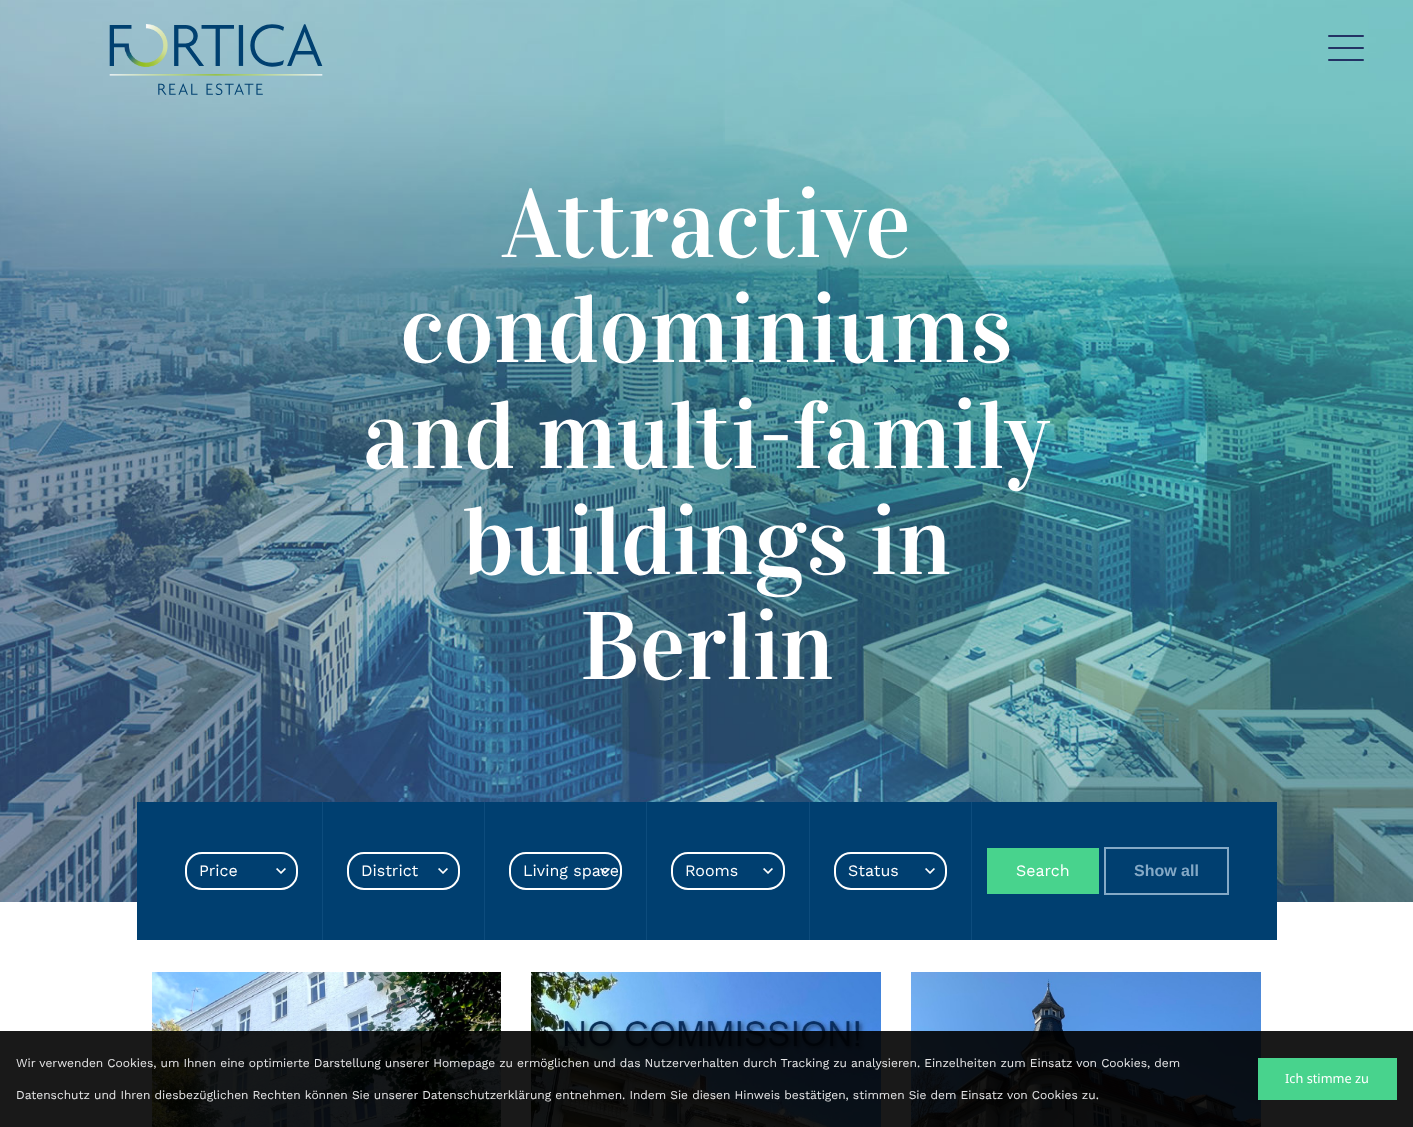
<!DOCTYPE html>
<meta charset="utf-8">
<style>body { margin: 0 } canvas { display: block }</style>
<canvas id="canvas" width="1413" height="1127"></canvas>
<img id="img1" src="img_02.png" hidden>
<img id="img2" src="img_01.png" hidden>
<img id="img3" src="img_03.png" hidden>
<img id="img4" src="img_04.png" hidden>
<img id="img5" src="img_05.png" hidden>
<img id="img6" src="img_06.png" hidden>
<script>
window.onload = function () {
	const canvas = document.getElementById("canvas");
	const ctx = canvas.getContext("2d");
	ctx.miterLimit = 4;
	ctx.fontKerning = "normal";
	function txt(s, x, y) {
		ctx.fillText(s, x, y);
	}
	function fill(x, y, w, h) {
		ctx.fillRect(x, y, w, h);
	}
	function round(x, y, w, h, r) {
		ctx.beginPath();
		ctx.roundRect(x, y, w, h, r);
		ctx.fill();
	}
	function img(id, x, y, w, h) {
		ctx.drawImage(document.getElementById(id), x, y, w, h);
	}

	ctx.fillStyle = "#FFFFFF";
	fill(0, 0, 1413, 1127);
	img("img1", 0, 0, 1413, 902);
	img("img2", 109, 24, 214, 71);
	ctx.fillStyle = "#233264";
	round(1328, 35, 36, 2, 1);
	round(1328, 47, 36, 2, 1);
	round(1328, 59, 36, 2, 1);
	ctx.fillStyle = "#003F70";
	fill(137, 802, 1140, 138);
	ctx.fillStyle = "#0D4C7D";
	fill(322, 802, 1, 138);
	img("img3", 276, 868, 10, 6);
	ctx.beginPath();
	ctx.roundRect(186, 853, 111, 36, 16);
	ctx.strokeStyle = "#FFFFFF";
	ctx.lineWidth = 2;
	ctx.stroke();
	fill(484, 802, 1, 138);
	img("img3", 438, 868, 10, 6);
	ctx.beginPath();
	ctx.roundRect(348, 853, 111, 36, 16);
	ctx.stroke();
	fill(646, 802, 1, 138);
	img("img3", 600, 868, 10, 6);
	ctx.beginPath();
	ctx.roundRect(510, 853, 111, 36, 16);
	ctx.stroke();
	fill(809, 802, 1, 138);
	img("img3", 763, 868, 10, 6);
	ctx.beginPath();
	ctx.roundRect(672, 853, 112, 36, 16);
	ctx.stroke();
	fill(971, 802, 1, 138);
	img("img3", 925, 868, 10, 6);
	ctx.beginPath();
	ctx.roundRect(835, 853, 111, 36, 16);
	ctx.stroke();
	ctx.fillStyle = "#48D38D";
	fill(987, 848, 112, 46);
	ctx.strokeStyle = "#84A9C6";
	ctx.strokeRect(1105, 848, 123, 46);
	img("img4", 152, 972, 349, 155);
	img("img5", 531, 972, 350, 155);
	img("img6", 911, 972, 350, 155);
	ctx.fillStyle = "rgba(0, 0, 0, 0.9)";
	fill(0, 1031, 1413, 96);
	ctx.fillStyle = "#48D38D";
	fill(1258, 1058, 139, 42);
	ctx.letterSpacing = "-0.3px";
	ctx.font = "96px Vidaloka";
	ctx.fillStyle = "#FFFFFF";
	txt("Attractive", 502, 257);
	txt("condominiums", 400, 362);
	txt("and multi-family", 363, 468);
	txt("buildings in", 463, 574);
	txt("Berlin", 580, 679);
	ctx.letterSpacing = "0px";
	ctx.font = "16px Work Sans";
	txt("Price", 199, 876);
	txt("District", 361, 876);
	txt("Living space", 523, 876);
	txt("Rooms", 685, 876);
	txt("Status", 848, 876);
	txt("Search", 1016, 876);
	ctx.font = "bold 16px Liberation Sans";
	ctx.fillStyle = "#84A9C6";
	txt("Show all", 1134, 876);
	ctx.font = "12px Work Sans";
	ctx.fillStyle = "#E7E7E8";
	txt("Wir verwenden Cookies, um Ihnen eine optimierte Darstellung unserer Homepage zu ermöglichen und das Nutzerverhalten durch Tracking zu analysieren. Einzelheiten zum Einsatz von Cookies, dem", 16, 1067);
	txt("Datenschutz und Ihren diesbezüglichen Rechten können Sie unserer Datenschutzerklärung entnehmen. Indem Sie diesen Hinweis bestätigen, stimmen Sie dem Einsatz von Cookies zu.", 16, 1099);
	ctx.font = "12.75px Noto Sans";
	ctx.fillStyle = "#FFFFFF";
	txt("Ich stimme zu", 1285, 1083);
};
</script>
